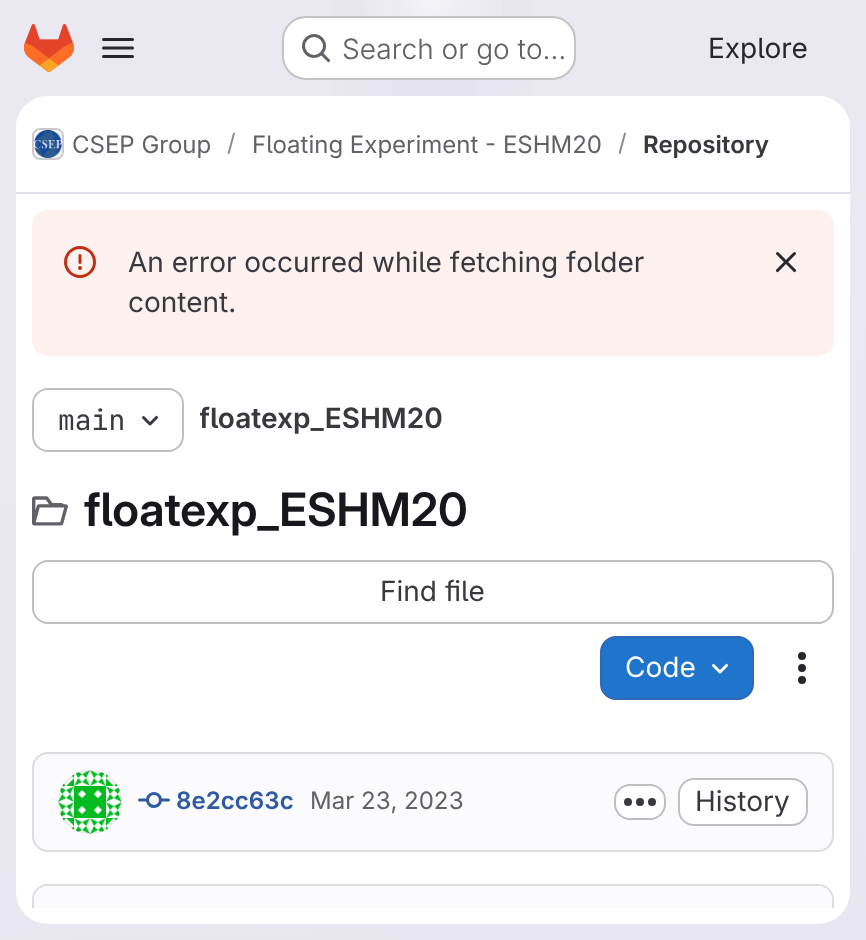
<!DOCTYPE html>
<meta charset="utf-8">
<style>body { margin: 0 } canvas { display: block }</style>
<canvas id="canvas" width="866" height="940"></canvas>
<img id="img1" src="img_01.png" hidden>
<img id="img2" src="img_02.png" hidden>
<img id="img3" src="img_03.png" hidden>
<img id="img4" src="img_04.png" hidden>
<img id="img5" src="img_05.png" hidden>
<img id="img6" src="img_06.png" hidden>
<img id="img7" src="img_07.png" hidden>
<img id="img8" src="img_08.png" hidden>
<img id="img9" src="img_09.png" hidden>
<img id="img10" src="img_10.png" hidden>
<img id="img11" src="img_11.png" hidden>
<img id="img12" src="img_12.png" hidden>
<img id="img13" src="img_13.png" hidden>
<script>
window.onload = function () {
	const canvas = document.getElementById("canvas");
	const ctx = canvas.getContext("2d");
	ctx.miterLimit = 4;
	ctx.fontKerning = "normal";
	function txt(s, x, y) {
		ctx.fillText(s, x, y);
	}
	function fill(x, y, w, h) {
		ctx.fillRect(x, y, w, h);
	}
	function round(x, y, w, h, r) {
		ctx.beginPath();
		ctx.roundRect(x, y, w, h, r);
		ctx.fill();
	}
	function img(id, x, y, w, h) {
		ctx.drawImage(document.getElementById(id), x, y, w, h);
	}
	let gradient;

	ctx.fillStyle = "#FFFFFF";
	fill(0, 0, 866, 940);
	gradient = ctx.createLinearGradient(526, 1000, 340, -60);
	gradient.addColorStop(0, "#E8E6F0");
	gradient.addColorStop(0.7, "#EAE9F2");
	ctx.fillStyle = gradient;
	fill(0, 0, 866, 940);
	gradient = ctx.createRadialGradient(433, 0, 0, 433, 0, 433);
	gradient.addColorStop(0, "#E4E2ED");
	gradient.addColorStop(0.32, "rgba(228, 226, 237, 0)");
	ctx.fillStyle = gradient;
	ctx.beginPath();
	ctx.rect(333, 0, 200, 96);
	ctx.save();
	ctx.clip();
	ctx.scale(1, 940 / 433);
	ctx.fillRect(0, 0, 866, 433);
	ctx.restore();
	gradient = ctx.createRadialGradient(433, 0, 0, 433, 0, 433);
	gradient.addColorStop(0, "#E4E2EC");
	gradient.addColorStop(0.23, "rgba(228, 226, 236, 0)");
	ctx.fillStyle = gradient;
	ctx.beginPath();
	ctx.rect(391, 2, 86, 94);
	ctx.save();
	ctx.clip();
	ctx.scale(1, 940 / 433);
	ctx.fillRect(0, 0, 866, 433);
	ctx.restore();
	gradient = ctx.createRadialGradient(433, 0, 0, 433, 0, 1035);
	gradient.addColorStop(0, "rgba(255, 255, 255, 0.6)");
	gradient.addColorStop(0.08, "rgba(255, 255, 255, 0)");
	ctx.fillStyle = gradient;
	fill(364, 0, 138, 16);
	img("img1", 24, 24, 50, 48);
	img("img2", 102, 38, 32, 20);
	ctx.fillStyle = "#FFFFFF";
	round(282, 16, 294, 64, 24);
	ctx.beginPath();
	ctx.roundRect(283, 17, 292, 62, 23);
	ctx.strokeStyle = "rgba(5, 5, 6, 0.24)";
	ctx.lineWidth = 2;
	ctx.stroke();
	img("img3", 302, 34, 29, 29);
	round(16, 96, 834, 828, 32);
	ctx.beginPath();
	ctx.roundRect(16, 96, 834, 98, [32, 32, 0, 0]);
	ctx.fill();
	ctx.fillStyle = "#E1DFEC";
	fill(16, 192, 834, 2);
	ctx.beginPath();
	ctx.roundRect(33, 129, 30, 30, 7);
	ctx.strokeStyle = "#DCDCDE";
	ctx.stroke();
	img("img4", 34, 130, 28, 28);
	ctx.beginPath();
	ctx.roundRect(33, 129, 30, 30, 7);
	ctx.strokeStyle = "rgba(5, 5, 6, 0.08)";
	ctx.stroke();
	ctx.fillStyle = "#FCF1EF";
	round(32, 210, 802, 146, 16);
	img("img5", 64, 246, 32, 32);
	img("img6", 775, 252, 22, 21);
	ctx.beginPath();
	ctx.roundRect(33, 389, 150, 62, 15);
	ctx.strokeStyle = "#BFBFC3";
	ctx.stroke();
	img("img7", 142, 415, 17, 11);
	img("img8", 32, 496, 36, 30);
	ctx.beginPath();
	ctx.roundRect(33, 561, 800, 62, 15);
	ctx.stroke();
	ctx.fillStyle = "#1F75CB";
	ctx.beginPath();
	ctx.roundRect(601, 637, 152, 62, 15);
	ctx.fill();
	ctx.strokeStyle = "#2F68B4";
	ctx.stroke();
	img("img9", 712, 663, 17, 11);
	img("img10", 798, 652, 8, 32);
	ctx.fillStyle = "#FBFAFD";
	ctx.beginPath();
	ctx.roundRect(33, 753, 800, 98, 15);
	ctx.fill();
	ctx.strokeStyle = "#DCDCDE";
	ctx.stroke();
	img("img11", 58, 770, 64, 64);
	ctx.beginPath();
	ctx.arc(90, 802, 31, 0, Math.PI * 2);
	ctx.strokeStyle = "rgba(5, 5, 6, 0.08)";
	ctx.stroke();
	img("img12", 138, 792, 32, 16);
	ctx.fillStyle = "#FFFFFF";
	ctx.beginPath();
	ctx.roundRect(615, 785, 50, 34, 15);
	ctx.fill();
	ctx.strokeStyle = "#BFBFC3";
	ctx.stroke();
	img("img13", 624, 798, 32, 8);
	ctx.beginPath();
	ctx.roundRect(679, 779, 128, 46, 15);
	ctx.fill();
	ctx.stroke();
	ctx.save();
	ctx.beginPath();
	ctx.rect(16, 194, 834, 714);
	ctx.clip();
	ctx.fillStyle = "#DCDCDE";
	ctx.beginPath();
	ctx.moveTo(48, 884);
	ctx.bezierCurveTo(39, 884, 32, 891, 32, 900);
	ctx.lineTo(32, 920);
	ctx.lineTo(34, 921);
	ctx.lineTo(34, 900);
	ctx.bezierCurveTo(34, 892, 40, 886, 48, 886);
	ctx.lineTo(818, 886);
	ctx.bezierCurveTo(826, 886, 832, 892, 832, 900);
	ctx.lineTo(832, 921);
	ctx.lineTo(834, 920);
	ctx.lineTo(834, 900);
	ctx.bezierCurveTo(834, 891, 827, 884, 818, 884);
	ctx.closePath();
	ctx.fill();
	ctx.restore();
	ctx.fillStyle = "#FBFAFD";
	ctx.beginPath();
	ctx.roundRect(34, 886, 400, 22, [14, 0, 0, 0]);
	ctx.fill();
	ctx.beginPath();
	ctx.roundRect(434, 886, 398, 22, [0, 14, 0, 0]);
	ctx.fill();
	ctx.font = "300 28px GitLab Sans";
	ctx.fillStyle = "#626168";
	txt("Search or go to…", 342, 59);
	ctx.font = "28px GitLab Sans";
	ctx.fillStyle = "#28272D";
	txt("Explore", 708, 58);
	ctx.font = "24px GitLab Sans";
	ctx.fillStyle = "#626168";
	txt("CSEP Group", 72, 153);
	ctx.fillStyle = "#89888D";
	txt("/", 227, 151);
	ctx.fillStyle = "#626168";
	txt("Floating Experiment - ESHM20", 252, 153);
	ctx.fillStyle = "#89888D";
	txt("/", 618, 151);
	ctx.font = "600 24px 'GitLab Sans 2'";
	ctx.fillStyle = "#3A383F";
	txt("Repository", 643, 153);
	ctx.font = "28px GitLab Sans";
	txt("An error occurred while fetching folder", 128, 272);
	txt("content.", 128, 312);
	ctx.font = "28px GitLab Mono";
	txt("main", 58, 430);
	ctx.save();
	ctx.beginPath();
	ctx.roundRect(200, 400, 242, 34, 8);
	ctx.clip();
	ctx.font = "600 28px 'GitLab Sans 2'";
	txt("floatexp_ESHM20", 199, 428);
	ctx.restore();
	ctx.font = "600 46px GitLab Sans";
	ctx.fillStyle = "#18171D";
	txt("floatexp_ESHM20", 84, 526);
	ctx.font = "28px GitLab Sans";
	ctx.fillStyle = "#3A383F";
	txt("Find file", 380, 601);
	ctx.fillStyle = "#FFFFFF";
	txt("Code", 625, 677);
	ctx.font = "600 24px 'GitLab Sans 2'";
	ctx.fillStyle = "#2F5CA0";
	txt("8e2cc63c", 176, 809);
	ctx.font = "24px GitLab Sans";
	ctx.fillStyle = "#626168";
	txt("Mar 23, 2023", 310, 809);
	ctx.font = "28px GitLab Sans";
	ctx.fillStyle = "#3A383F";
	txt("History", 695, 811);
};
</script>
